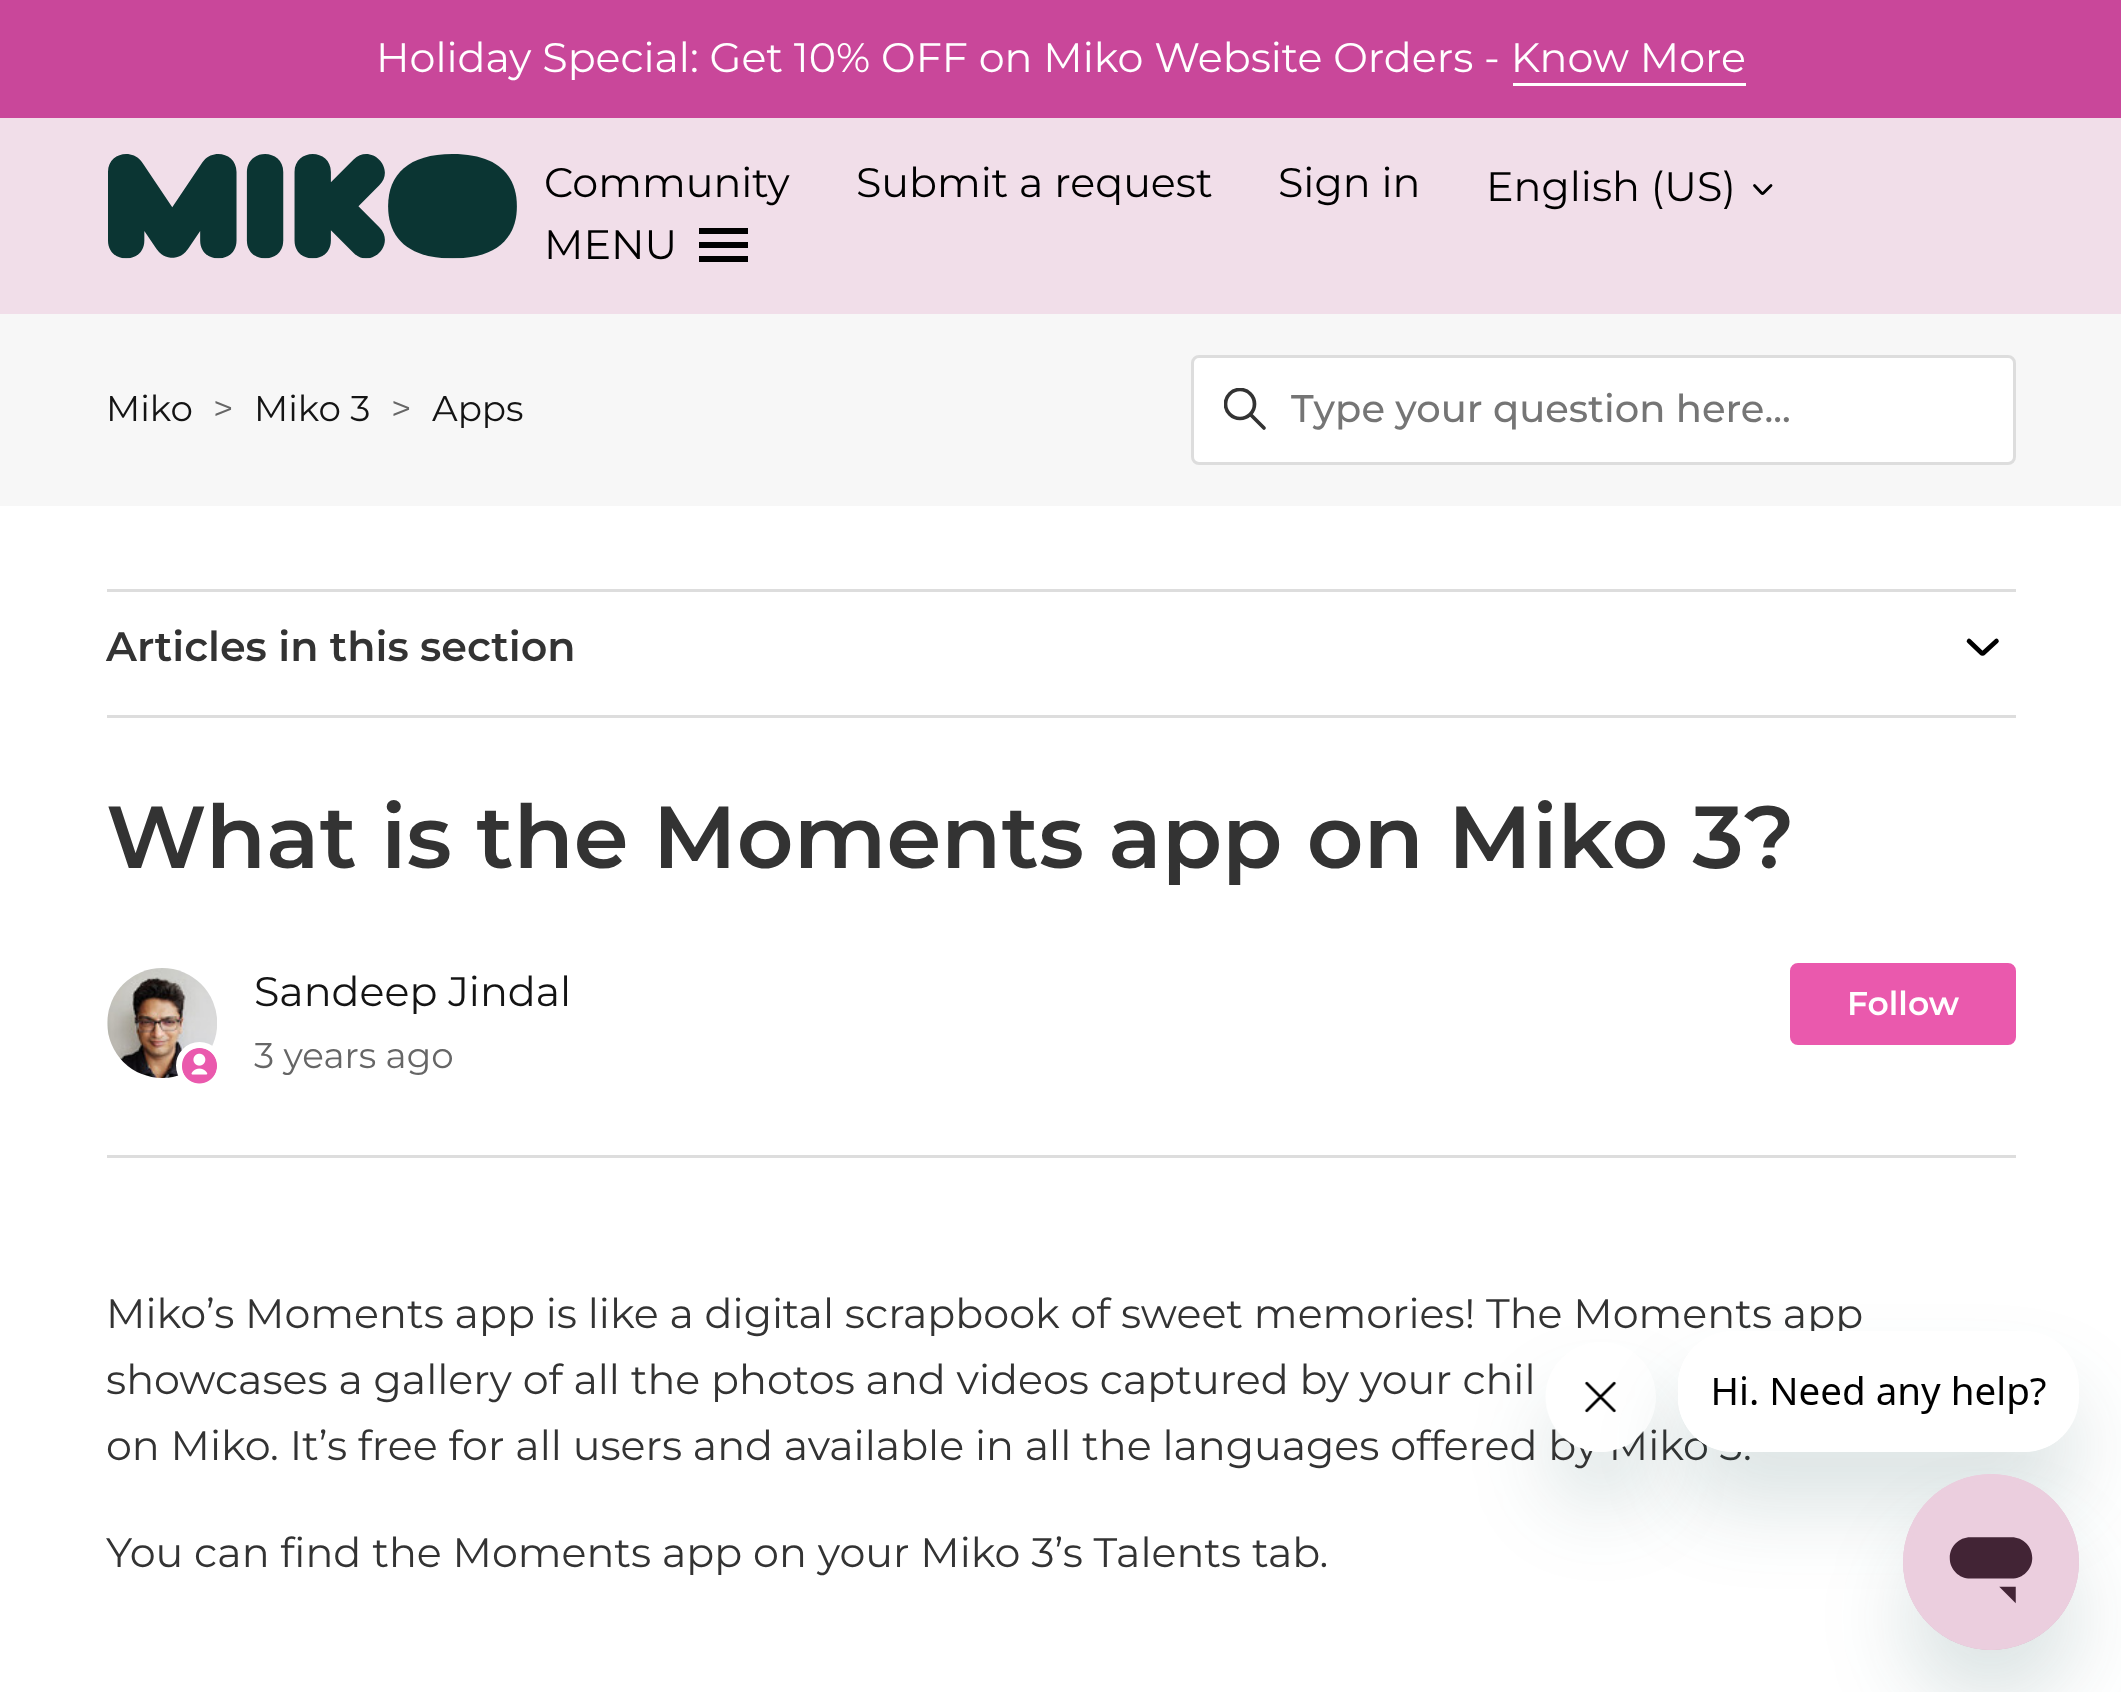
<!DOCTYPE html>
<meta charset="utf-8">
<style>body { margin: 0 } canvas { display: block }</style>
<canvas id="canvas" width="2121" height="1692"></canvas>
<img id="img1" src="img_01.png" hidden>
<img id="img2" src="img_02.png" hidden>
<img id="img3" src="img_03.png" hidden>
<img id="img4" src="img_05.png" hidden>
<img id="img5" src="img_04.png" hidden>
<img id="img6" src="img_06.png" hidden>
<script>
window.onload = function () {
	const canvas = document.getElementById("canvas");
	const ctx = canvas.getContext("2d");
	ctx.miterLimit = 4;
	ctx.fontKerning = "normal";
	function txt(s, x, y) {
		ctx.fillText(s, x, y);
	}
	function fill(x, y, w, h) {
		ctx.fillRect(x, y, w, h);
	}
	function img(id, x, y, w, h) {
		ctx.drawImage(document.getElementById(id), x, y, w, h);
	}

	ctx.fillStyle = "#FFFFFF";
	fill(0, 0, 2121, 1692);
	ctx.fillStyle = "#C9479A";
	fill(0, 0, 2121, 118);
	ctx.fillStyle = "#FFFFFF";
	fill(1513, 83, 233, 3);
	ctx.fillStyle = "#F1DEE9";
	fill(0, 118, 2121, 196);
	img("img1", 108, 154, 409, 105);
	ctx.beginPath();
	ctx.moveTo(1754.5, 185.5);
	ctx.lineTo(1761.5, 193);
	ctx.bezierCurveTo(1762, 193.5, 1763, 193.5, 1763.5, 193);
	ctx.lineTo(1771, 185.5);
	ctx.strokeStyle = "#000000";
	ctx.lineWidth = 2.8;
	ctx.lineCap = "round";
	ctx.stroke();
	ctx.fillStyle = "#000000";
	fill(699, 242, 49, 6);
	fill(699, 228, 49, 6);
	fill(699, 256, 49, 6);
	ctx.fillStyle = "#F7F7F7";
	fill(0, 314, 2121, 192);
	ctx.fillStyle = "#FFFFFF";
	ctx.beginPath();
	ctx.roundRect(1192.5, 356.5, 822, 107, 6.5);
	ctx.fill();
	ctx.strokeStyle = "#DDDDDD";
	ctx.lineWidth = 3;
	ctx.stroke();
	ctx.save();
	ctx.beginPath();
	ctx.rect(1224, 388, 44, 44);
	ctx.clip();
	ctx.beginPath();
	ctx.arc(1240, 404, 14.5, 0, Math.PI * 2);
	ctx.strokeStyle = "#333333";
	ctx.lineWidth = 3.7;
	ctx.stroke();
	ctx.restore();
	ctx.beginPath();
	ctx.moveTo(1264, 428);
	ctx.lineTo(1251, 415);
	ctx.strokeStyle = "#333333";
	ctx.lineWidth = 3.7;
	ctx.stroke();
	ctx.fillStyle = "#DDDDDD";
	fill(107, 589, 1909, 3);
	fill(107, 715, 1909, 3);
	ctx.beginPath();
	ctx.moveTo(1969, 641);
	ctx.lineTo(1981, 652.5);
	ctx.bezierCurveTo(1982, 653.5, 1983, 653.5, 1984, 652.5);
	ctx.lineTo(1996.5, 641);
	ctx.strokeStyle = "#000000";
	ctx.lineWidth = 4.6;
	ctx.stroke();
	fill(107, 1155, 1909, 3);
	img("img2", 107, 968, 110, 110);
	ctx.fillStyle = "#FFFFFF";
	ctx.beginPath();
	ctx.arc(199.5, 1065.5, 20.5, 0, Math.PI * 2);
	ctx.fill();
	ctx.strokeStyle = "#FFFFFF";
	ctx.lineWidth = 6;
	ctx.stroke();
	img("img3", 182, 1048, 35, 36);
	ctx.fillStyle = "#EA59AD";
	ctx.beginPath();
	ctx.roundRect(1791.5, 964.5, 223, 79, 6.5);
	ctx.fill();
	ctx.strokeStyle = "#EA59AD";
	ctx.lineWidth = 3;
	ctx.stroke();
	ctx.save();
	ctx.beginPath();
	ctx.moveTo(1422, 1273);
	ctx.lineTo(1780, 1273);
	ctx.lineTo(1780, 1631);
	ctx.lineTo(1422, 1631);
	ctx.closePath();
	ctx.moveTo(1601, 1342);
	ctx.bezierCurveTo(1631.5, 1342, 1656, 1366.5, 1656, 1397);
	ctx.bezierCurveTo(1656, 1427.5, 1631.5, 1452, 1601, 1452);
	ctx.bezierCurveTo(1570.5, 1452, 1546, 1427.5, 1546, 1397);
	ctx.bezierCurveTo(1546, 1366.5, 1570.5, 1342, 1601, 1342);
	ctx.closePath();
	ctx.clip("evenodd");
	ctx.fillStyle = "rgba(23, 73, 77, 0.15)";
	ctx.filter = "blur(41px)";
	ctx.beginPath();
	ctx.roundRect(1546, 1397, 110, 110, 55);
	ctx.fill();
	ctx.filter = "none";
	ctx.restore();
	ctx.font = "41.25px Montserrat";
	ctx.fillStyle = "#FFFFFF";
	txt("Holiday Special: Get 10% OFF on Miko Website Orders - Know More", 376, 72);
	ctx.fillStyle = "#000000";
	txt("Community", 544, 197);
	txt("Submit a request", 856, 197);
	txt("Sign in", 1278, 197);
	txt("English (US)", 1486, 201);
	txt("MENU", 544, 259);
	ctx.font = "35.75px Montserrat";
	ctx.fillStyle = "#141414";
	txt("Miko", 106, 421);
	ctx.fillStyle = "#666666";
	txt(">", 213, 421);
	ctx.fillStyle = "#141414";
	txt("Miko 3", 254, 421);
	ctx.fillStyle = "#666666";
	txt(">", 391, 421);
	ctx.fillStyle = "#141414";
	txt("Apps", 432, 421);
	ctx.font = "500 38.5px Montserrat";
	ctx.fillStyle = "#757575";
	txt("Type your question here...", 1291, 422);
	ctx.font = "600 41.25px Montserrat";
	ctx.fillStyle = "#333333";
	txt("Articles in this section", 106, 661);
	ctx.font = "600 88px Montserrat";
	txt("What is the Moments app on Miko 3?", 106, 868);
	ctx.font = "41.25px Montserrat";
	ctx.fillStyle = "#141414";
	txt("Sandeep Jindal", 254, 1006);
	ctx.font = "35.75px Montserrat";
	ctx.fillStyle = "#666666";
	txt("3 years ago", 254, 1068);
	ctx.font = "600 33px Montserrat";
	ctx.fillStyle = "#FFFFFF";
	txt("Follow", 1847, 1015);
	ctx.font = "41.25px Montserrat";
	ctx.fillStyle = "#333333";
	txt("Miko’s Moments app is like a digital scrapbook of sweet memories! The Moments app", 106, 1328);
	txt("showcases a gallery of all the photos and videos captured by your chil", 106, 1394);
	txt("on Miko. It’s free for all users and available in all the languages offered by Miko 3.", 106, 1460);
	txt("You can find the Moments app on your Miko 3’s Talents tab.", 106, 1567);
	img("img4", 1545, 1363, 111, 89);
	ctx.save();
	ctx.beginPath();
	ctx.moveTo(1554, 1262);
	ctx.lineTo(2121, 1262);
	ctx.lineTo(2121, 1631);
	ctx.lineTo(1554, 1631);
	ctx.closePath();
	ctx.moveTo(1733, 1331);
	ctx.lineTo(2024, 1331);
	ctx.bezierCurveTo(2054.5, 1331, 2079, 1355.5, 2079, 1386);
	ctx.lineTo(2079, 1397);
	ctx.bezierCurveTo(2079, 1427.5, 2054.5, 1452, 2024, 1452);
	ctx.lineTo(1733, 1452);
	ctx.bezierCurveTo(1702.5, 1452, 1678, 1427.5, 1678, 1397);
	ctx.lineTo(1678, 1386);
	ctx.bezierCurveTo(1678, 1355.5, 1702.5, 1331, 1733, 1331);
	ctx.closePath();
	ctx.clip("evenodd");
	ctx.fillStyle = "rgba(23, 73, 77, 0.15)";
	ctx.filter = "blur(41px)";
	ctx.beginPath();
	ctx.roundRect(1678, 1386, 401, 121, 55);
	ctx.fill();
	ctx.filter = "none";
	ctx.restore();
	img("img5", 1677, 1331, 381, 121);
	ctx.fillStyle = "rgba(23, 73, 77, 0.15)";
	ctx.filter = "blur(41px)";
	ctx.beginPath();
	ctx.roundRect(1903, 1529, 176, 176, 88);
	ctx.fill();
	ctx.filter = "none";
	img("img6", 1903, 1474, 176, 176);
};
</script>
